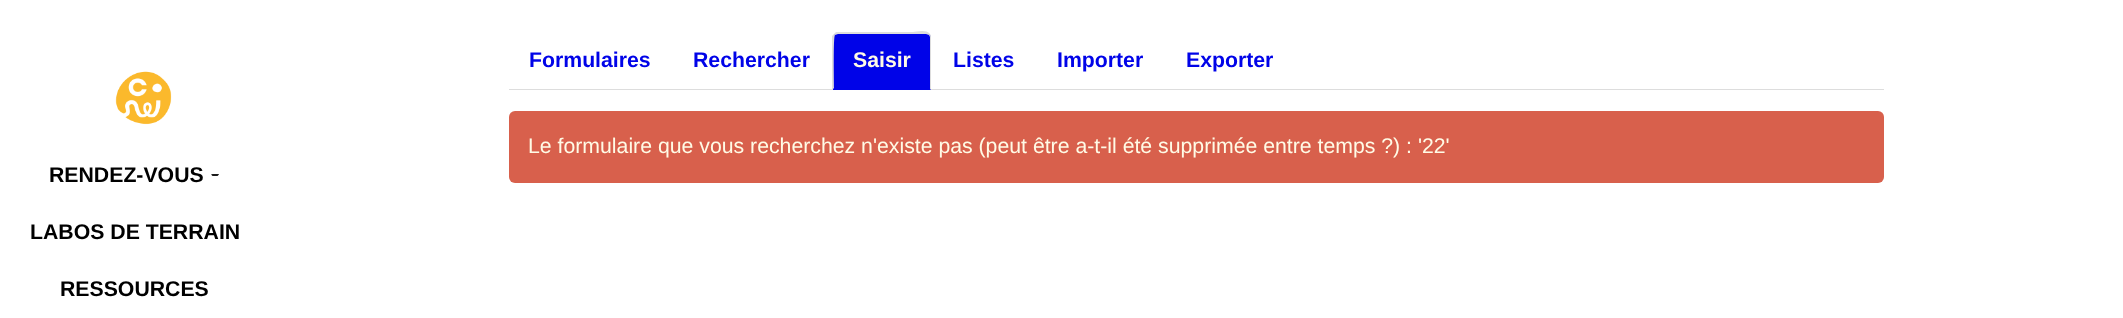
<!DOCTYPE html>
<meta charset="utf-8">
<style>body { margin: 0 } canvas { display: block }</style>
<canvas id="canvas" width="2123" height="318"></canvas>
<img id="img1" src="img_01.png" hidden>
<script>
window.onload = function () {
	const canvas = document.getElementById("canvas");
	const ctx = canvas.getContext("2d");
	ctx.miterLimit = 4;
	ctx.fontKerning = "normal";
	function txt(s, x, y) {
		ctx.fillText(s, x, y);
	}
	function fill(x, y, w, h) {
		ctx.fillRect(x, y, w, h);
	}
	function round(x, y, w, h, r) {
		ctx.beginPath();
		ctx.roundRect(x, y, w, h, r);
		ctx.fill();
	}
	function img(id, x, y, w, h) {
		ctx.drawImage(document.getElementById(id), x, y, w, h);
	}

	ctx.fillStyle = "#FFFFFF";
	fill(0, 0, 2123, 318);
	ctx.fillStyle = "#DDDDDD";
	fill(509, 89, 1375, 1);
	ctx.fillStyle = "#0003E8";
	ctx.beginPath();
	ctx.roundRect(833, 33, 98, 57, [5, 5, 0, 0]);
	ctx.fill();
	ctx.fillStyle = "#DDDDDD";
	ctx.beginPath();
	ctx.moveTo(838, 34);
	ctx.lineTo(835, 35);
	ctx.lineTo(834, 34);
	ctx.lineTo(836, 32);
	ctx.lineTo(913, 32);
	ctx.bezierCurveTo(916, 32, 926, 29, 930, 34);
	ctx.lineTo(929, 35);
	ctx.lineTo(926, 34);
	ctx.closePath();
	ctx.fill();
	ctx.beginPath();
	ctx.moveTo(930, 34);
	ctx.bezierCurveTo(931, 35, 931, 37, 931, 38);
	ctx.lineTo(931, 90);
	ctx.lineTo(930, 89);
	ctx.lineTo(930, 37);
	ctx.lineTo(929, 35);
	ctx.closePath();
	ctx.fill();
	ctx.beginPath();
	ctx.moveTo(832, 90);
	ctx.lineTo(832, 36);
	ctx.lineTo(834, 34);
	ctx.lineTo(835, 35);
	ctx.bezierCurveTo(833, 37, 834, 82, 834, 88);
	ctx.closePath();
	ctx.fill();
	ctx.fillStyle = "#D8604C";
	round(509, 111, 1375, 72, 6);
	img("img1", 115, 71, 57, 54);
	ctx.fillStyle = "#1A1A1A";
	ctx.beginPath();
	ctx.moveTo(212.5, 174);
	ctx.lineTo(218.5, 174);
	ctx.lineTo(219, 174.5);
	ctx.lineTo(217.5, 176);
	ctx.lineTo(212.5, 176);
	ctx.lineTo(211, 174.5);
	ctx.closePath();
	ctx.fill();
	ctx.font = "bold 21.25px Liberation Sans";
	ctx.fillStyle = "#0003E8";
	txt("Formulaires", 529, 67);
	txt("Rechercher", 693, 67);
	ctx.fillStyle = "#FFFBE6";
	txt("Saisir", 853, 67);
	ctx.fillStyle = "#0003E8";
	txt("Listes", 953, 67);
	txt("Importer", 1057, 67);
	txt("Exporter", 1186, 67);
	ctx.font = "21.25px Liberation Sans";
	ctx.fillStyle = "#FFFBE6";
	txt("Le formulaire que vous recherchez n'existe pas (peut être a-t-il été supprimée entre temps ?) : '22'", 528, 153);
	ctx.font = "bold 21.25px Liberation Sans";
	ctx.fillStyle = "#000000";
	txt("RENDEZ-VOUS", 49, 182);
	txt("LABOS DE TERRAIN", 30, 239);
	txt("RESSOURCES", 60, 296);
};
</script>
